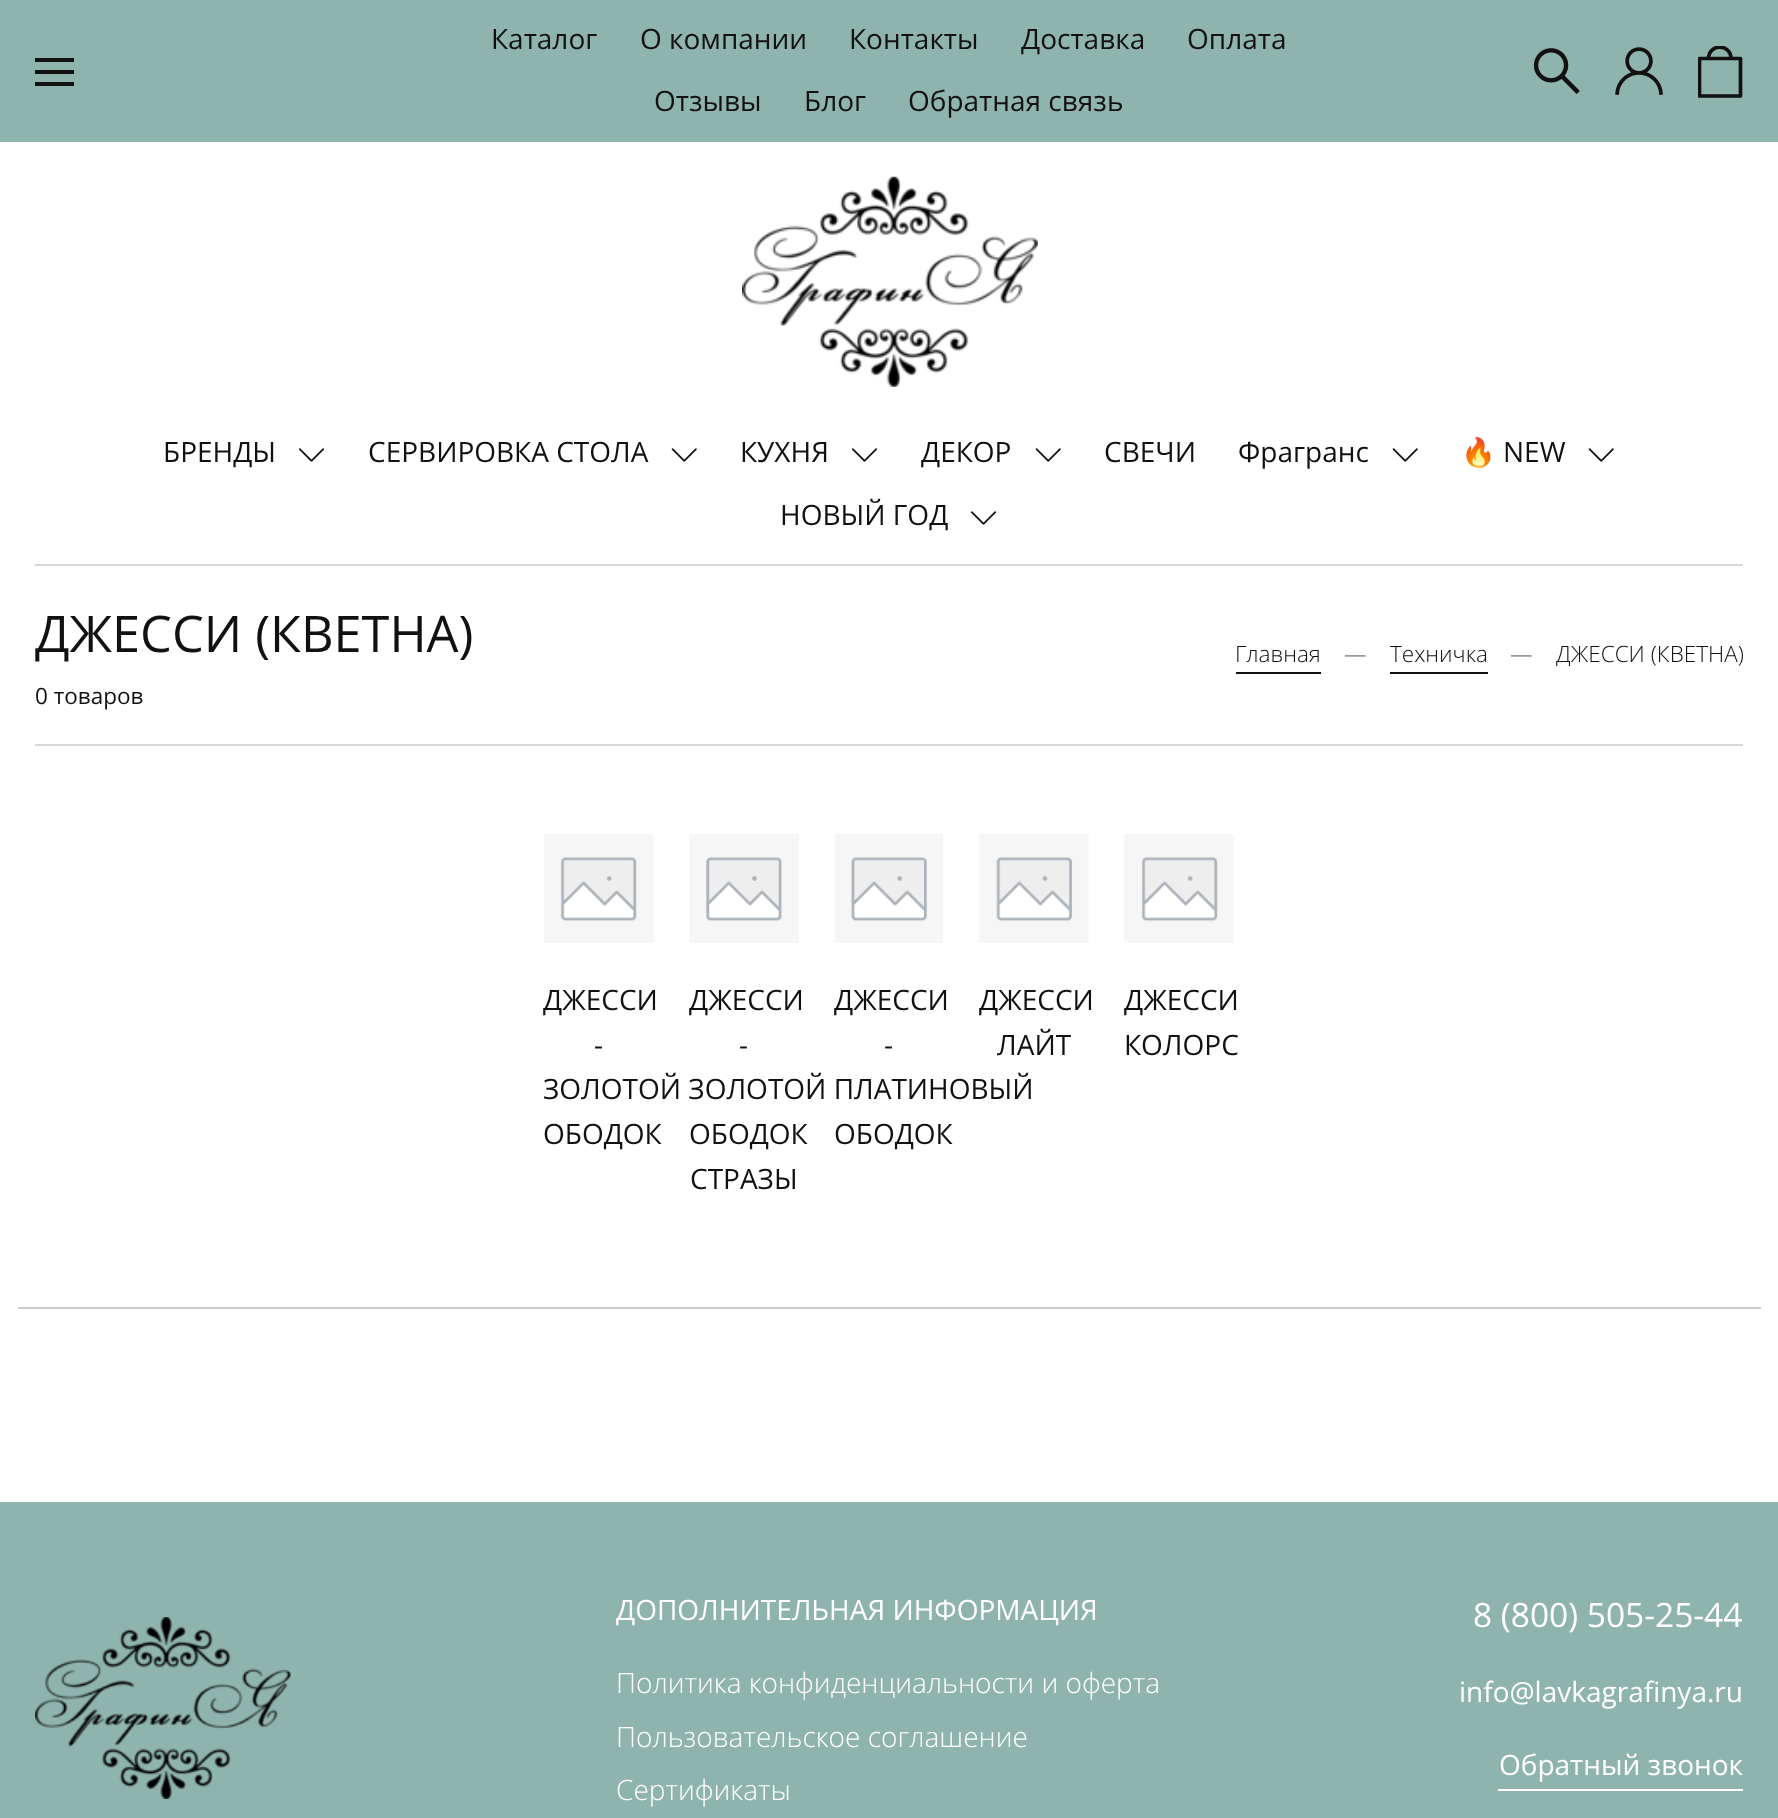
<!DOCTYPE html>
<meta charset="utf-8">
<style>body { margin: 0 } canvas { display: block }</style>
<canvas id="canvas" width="1778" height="1818"></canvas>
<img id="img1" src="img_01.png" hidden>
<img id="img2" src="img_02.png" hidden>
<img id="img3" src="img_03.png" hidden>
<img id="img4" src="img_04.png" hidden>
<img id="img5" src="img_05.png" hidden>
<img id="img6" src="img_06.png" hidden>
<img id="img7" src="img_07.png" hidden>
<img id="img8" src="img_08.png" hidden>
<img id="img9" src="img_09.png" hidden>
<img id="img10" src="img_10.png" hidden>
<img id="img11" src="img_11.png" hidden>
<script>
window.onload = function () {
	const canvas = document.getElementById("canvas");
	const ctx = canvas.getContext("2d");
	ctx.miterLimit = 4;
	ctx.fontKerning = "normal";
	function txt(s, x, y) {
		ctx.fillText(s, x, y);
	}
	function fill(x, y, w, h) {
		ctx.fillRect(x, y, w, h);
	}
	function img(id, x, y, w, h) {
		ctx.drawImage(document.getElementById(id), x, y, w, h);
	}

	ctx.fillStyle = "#FFFFFF";
	fill(0, 0, 1778, 1818);
	ctx.fillStyle = "#8FB4AD";
	fill(0, 0, 1778, 142);
	ctx.fillStyle = "#121111";
	fill(35, 58, 39, 4);
	fill(35, 70, 39, 4);
	fill(35, 82, 39, 4);
	img("img1", 1533, 48, 47, 46);
	img("img2", 1615, 47, 48, 48);
	ctx.save();
	ctx.beginPath();
	ctx.rect(1698, 46, 45, 52);
	ctx.clip();
	ctx.beginPath();
	ctx.moveTo(1708.5, 58.5);
	ctx.bezierCurveTo(1708.5, 43.5, 1731, 43.5, 1731, 58.5);
	ctx.moveTo(1699.5, 58.5);
	ctx.lineTo(1699.5, 96);
	ctx.lineTo(1740.5, 96);
	ctx.lineTo(1740.5, 58.5);
	ctx.closePath();
	ctx.strokeStyle = "#121111";
	ctx.lineWidth = 3.7;
	ctx.lineCap = "round";
	ctx.lineJoin = "round";
	ctx.stroke();
	ctx.restore();
	img("img3", 742, 176, 296, 211);
	img("img4", 298, 448, 26, 14);
	img("img5", 671, 448, 26, 14);
	img("img4", 851, 448, 26, 14);
	img("img5", 1035, 448, 26, 14);
	img("img5", 1392, 448, 26, 14);
	img("img5", 1588, 448, 26, 14);
	img("img4", 970, 511, 26, 14);
	ctx.fillStyle = "#D7D7D7";
	fill(35, 564, 1708, 2);
	fill(35, 744, 1708, 2);
	ctx.fillStyle = "#121111";
	fill(1236, 672, 85, 2);
	fill(1390, 672, 98, 2);
	ctx.fillStyle = "#CCCCCC";
	fill(18, 1307, 1743, 2);
	img("img6", 544, 834, 110, 109);
	img("img7", 689, 834, 110, 109);
	img("img8", 835, 834, 108, 109);
	img("img9", 979, 834, 110, 109);
	img("img10", 1124, 834, 110, 109);
	ctx.fillStyle = "#8FB4AD";
	fill(0, 1502, 1778, 316);
	img("img11", 35, 1617, 256, 182);
	ctx.fillStyle = "#FFFFFF";
	fill(1498, 1789, 245, 2);
	ctx.font = "28px Open Sans";
	ctx.fillStyle = "#121111";
	txt("Каталог", 491, 49);
	txt("О компании", 640, 49);
	txt("Контакты", 849, 49);
	txt("Доставка", 1021, 49);
	txt("Оплата", 1187, 49);
	txt("Отзывы", 654, 111);
	txt("Блог", 804, 111);
	txt("Обратная связь", 908, 111);
	txt("БРЕНДЫ", 163, 462);
	txt("СЕРВИРОВКА СТОЛА", 368, 462);
	txt("КУХНЯ", 740, 462);
	txt("ДЕКОР", 921, 462);
	txt("СВЕЧИ", 1104, 462);
	txt("Фрагранс", 1238, 462);
	ctx.font = "28px Noto Color Emoji";
	txt("🔥", 1461, 462);
	ctx.font = "28px Open Sans";
	txt("NEW", 1503, 462);
	txt("НОВЫЙ ГОД", 780, 525);
	ctx.font = "50.5px Open Sans";
	txt("ДЖЕССИ (КВЕТНА)", 35, 652);
	ctx.font = "22.5px Open Sans";
	txt("0 товаров", 35, 704);
	ctx.font = "300 22.5px Open Sans";
	txt("Главная", 1235, 662);
	ctx.fillStyle = "#595858";
	txt("—", 1344, 662);
	ctx.fillStyle = "#121111";
	txt("Техничка", 1390, 662);
	ctx.fillStyle = "#595858";
	txt("—", 1510, 662);
	ctx.fillStyle = "#121111";
	txt("ДЖЕССИ (КВЕТНА)", 1556, 662);
	ctx.font = "28px Open Sans";
	txt("ДЖЕССИ", 543, 1010);
	txt("-", 594, 1055);
	txt("ЗОЛОТОЙ ЗОЛОТОЙ ПЛАТИНОВЫЙ", 543, 1099);
	txt("ОБОДОК", 543, 1144);
	txt("ДЖЕССИ", 689, 1010);
	txt("-", 739, 1055);
	txt("ОБОДОК", 689, 1144);
	txt("СТРАЗЫ", 690, 1189);
	txt("ДЖЕССИ", 834, 1010);
	txt("-", 884, 1055);
	txt("ОБОДОК", 834, 1144);
	txt("ДЖЕССИ", 979, 1010);
	txt("ЛАЙТ", 997, 1055);
	txt("ДЖЕССИ", 1124, 1010);
	txt("КОЛОРС", 1124, 1055);
	ctx.fillStyle = "#FFFFFF";
	txt("ДОПОЛНИТЕЛЬНАЯ ИНФОРМАЦИЯ", 616, 1620);
	ctx.font = "300 28px Open Sans";
	txt("Политика конфиденциальности и оферта", 616, 1693);
	txt("Пользовательское соглашение", 616, 1747);
	txt("Сертификаты", 616, 1800);
	ctx.font = "33.5px Open Sans";
	txt("8 (800) 505-25-44", 1473, 1627);
	ctx.font = "28px Open Sans";
	txt("info@lavkagrafinya.ru", 1459, 1702);
	txt("Обратный звонок", 1499, 1775);
};
</script>
